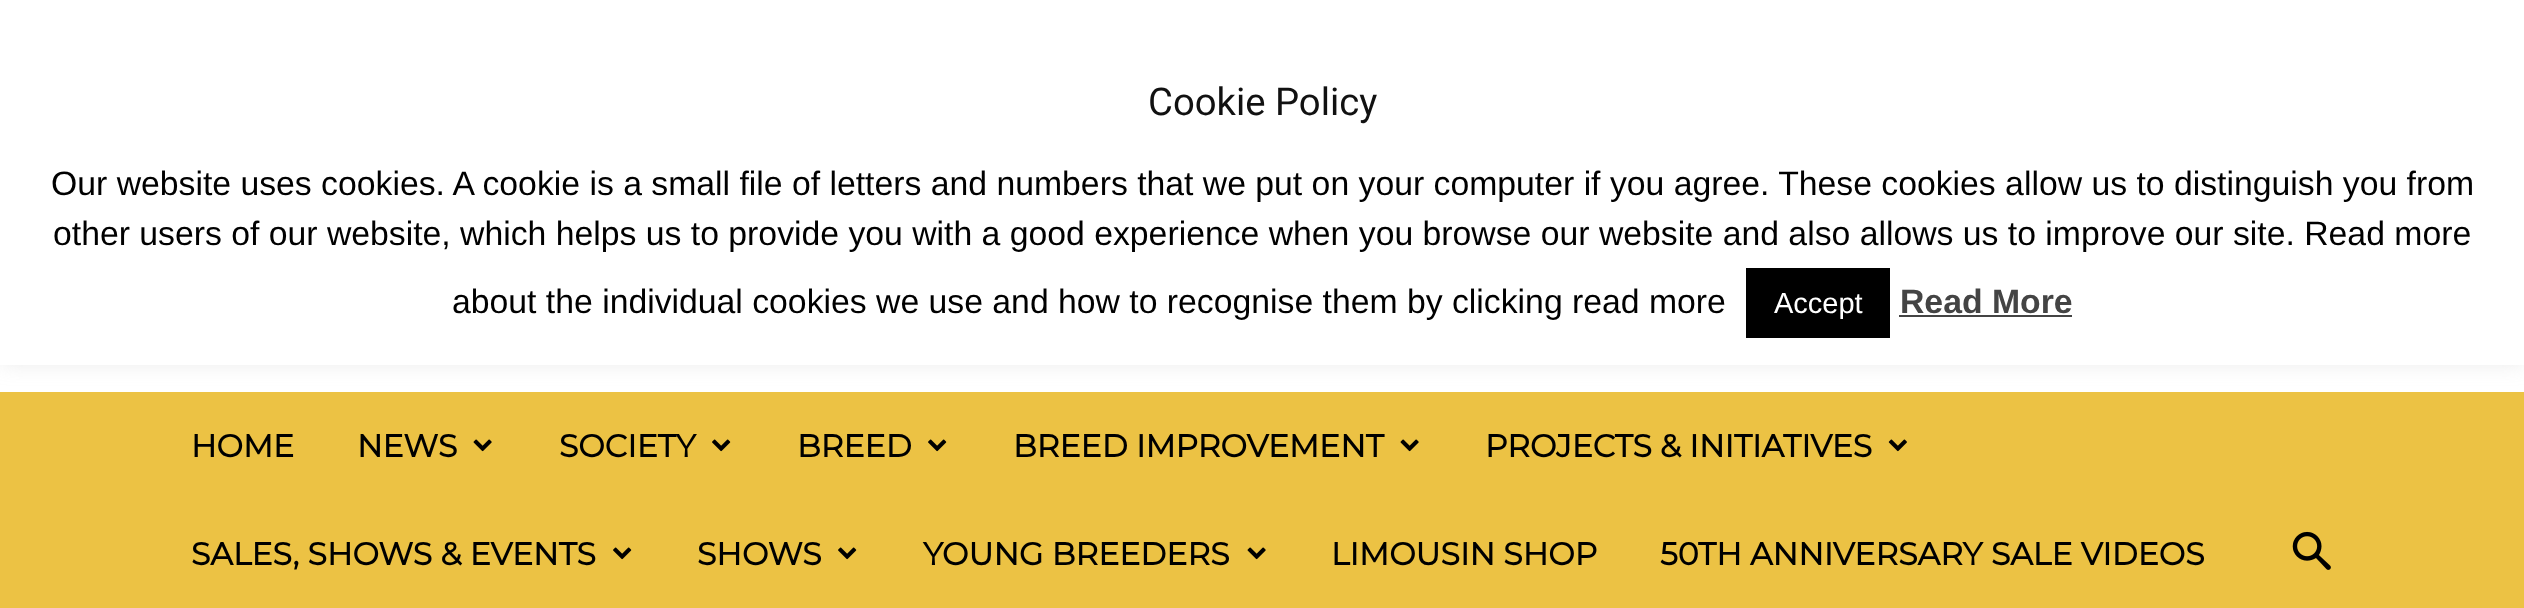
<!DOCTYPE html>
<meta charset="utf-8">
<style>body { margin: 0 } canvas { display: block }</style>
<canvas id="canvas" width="2524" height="608"></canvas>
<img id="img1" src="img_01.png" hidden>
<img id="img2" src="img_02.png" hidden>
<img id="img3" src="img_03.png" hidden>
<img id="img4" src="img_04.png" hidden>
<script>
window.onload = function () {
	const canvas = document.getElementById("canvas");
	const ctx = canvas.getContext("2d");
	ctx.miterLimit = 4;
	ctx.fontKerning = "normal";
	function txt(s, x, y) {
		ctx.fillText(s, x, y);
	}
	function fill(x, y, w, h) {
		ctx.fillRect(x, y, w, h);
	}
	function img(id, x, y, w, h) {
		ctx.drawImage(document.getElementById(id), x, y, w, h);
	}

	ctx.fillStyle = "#FFFFFF";
	fill(0, 0, 2524, 608);
	ctx.fillStyle = "#ECC244";
	fill(0, 392, 2524, 216);
	ctx.fillStyle = "rgba(172, 171, 171, 0.3)";
	ctx.filter = "blur(11px)";
	ctx.beginPath();
	ctx.rect(0, -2, 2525, 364);
	ctx.fill();
	ctx.filter = "none";
	ctx.fillStyle = "#FFFFFF";
	fill(0, 0, 2524, 365);
	ctx.fillStyle = "#000000";
	fill(1746, 268, 144, 70);
	ctx.fillStyle = "#444444";
	fill(1899, 315, 173, 2);
	img("img1", 473, 439, 19, 13);
	img("img2", 712, 439, 19, 13);
	img("img2", 928, 439, 19, 13);
	img("img1", 1400, 439, 19, 13);
	img("img3", 1888, 439, 19, 13);
	img("img2", 613, 547, 19, 13);
	img("img2", 838, 547, 19, 13);
	img("img1", 1247, 547, 19, 13);
	img("img4", 2292, 531, 39, 39);
	ctx.font = "38.25px Roboto";
	ctx.fillStyle = "#111111";
	txt("Cookie Policy", 1148, 115);
	ctx.font = "33.75px Liberation Sans";
	ctx.fillStyle = "#000000";
	txt("Our website uses cookies. A cookie is a small file of letters and numbers that we put on your computer if you agree. These cookies allow us to distinguish you from", 51, 195);
	txt("other users of our website, which helps us to provide you with a good experience when you browse our website and also allows us to improve our site. Read more", 53, 245);
	txt("about the individual cookies we use and how to recognise them by clicking read more", 452, 313);
	ctx.font = "29px Liberation Sans";
	ctx.fillStyle = "#FFFFFF";
	txt("Accept", 1774, 313);
	ctx.font = "bold 33.75px Liberation Sans";
	ctx.fillStyle = "#444444";
	txt("Read More", 1900, 313);
	ctx.font = "bold 31.5px Montserrat";
	ctx.fillStyle = "#000000";
	txt("HOME", 191, 457);
	txt("NEWS", 357, 457);
	txt("SOCIETY", 559, 457);
	txt("BREED", 797, 457);
	txt("BREED IMPROVEMENT", 1013, 457);
	txt("PROJECTS & INITIATIVES", 1485, 457);
	txt("SALES, SHOWS & EVENTS", 191, 565);
	txt("SHOWS", 697, 565);
	txt("YOUNG BREEDERS", 923, 565);
	txt("LIMOUSIN SHOP", 1331, 565);
	txt("50TH ANNIVERSARY SALE VIDEOS", 1660, 565);
};
</script>
